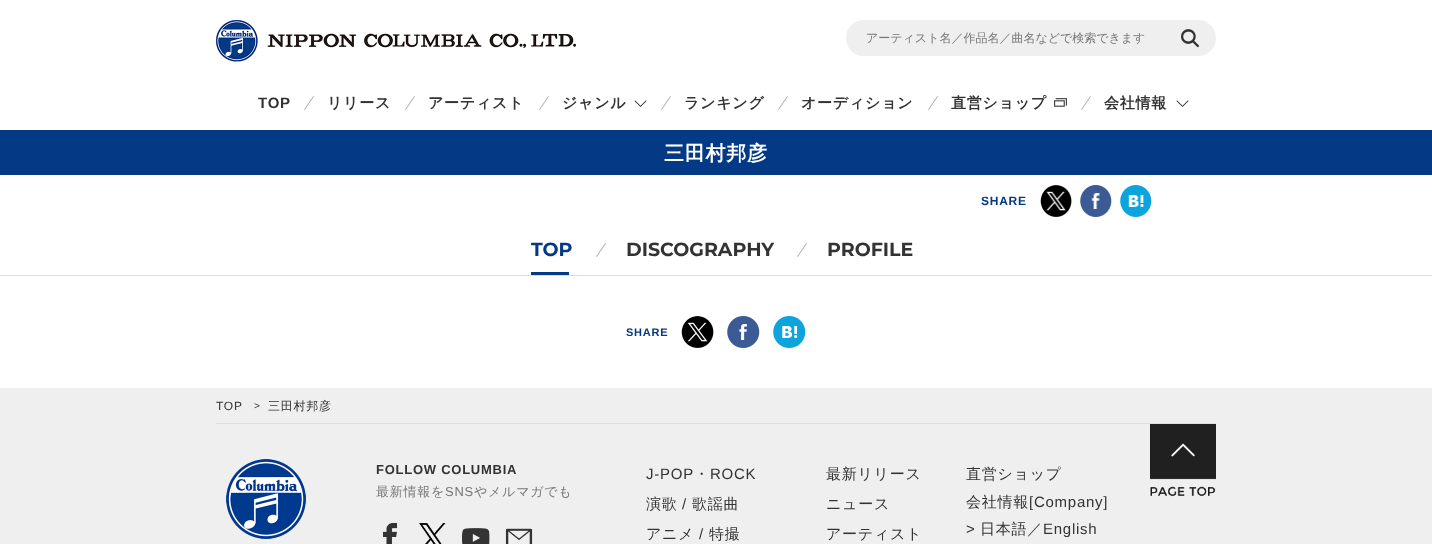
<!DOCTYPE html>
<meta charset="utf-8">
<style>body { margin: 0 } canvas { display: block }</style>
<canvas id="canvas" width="1432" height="544"></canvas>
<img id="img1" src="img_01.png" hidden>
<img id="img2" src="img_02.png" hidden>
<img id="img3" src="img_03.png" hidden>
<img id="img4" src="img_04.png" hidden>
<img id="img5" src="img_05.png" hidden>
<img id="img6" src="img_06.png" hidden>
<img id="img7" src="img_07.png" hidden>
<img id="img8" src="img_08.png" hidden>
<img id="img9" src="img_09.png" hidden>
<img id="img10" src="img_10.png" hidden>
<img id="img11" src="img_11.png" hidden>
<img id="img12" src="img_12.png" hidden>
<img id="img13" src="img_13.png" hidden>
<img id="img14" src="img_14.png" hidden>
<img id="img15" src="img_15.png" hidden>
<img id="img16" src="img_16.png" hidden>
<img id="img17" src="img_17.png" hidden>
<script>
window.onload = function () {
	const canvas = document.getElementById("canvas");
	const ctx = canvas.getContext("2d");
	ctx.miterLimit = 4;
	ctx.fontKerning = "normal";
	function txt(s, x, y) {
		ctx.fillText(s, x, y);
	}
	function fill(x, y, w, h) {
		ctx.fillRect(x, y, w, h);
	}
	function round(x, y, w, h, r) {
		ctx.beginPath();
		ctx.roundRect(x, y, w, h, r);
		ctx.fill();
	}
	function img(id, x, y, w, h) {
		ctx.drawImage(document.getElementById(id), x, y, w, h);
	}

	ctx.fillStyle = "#FFFFFF";
	fill(0, 0, 1432, 544);
	img("img1", 216, 20, 360, 42);
	ctx.fillStyle = "#EFEFEF";
	round(846, 20, 370, 36, 18);
	img("img2", 1181, 29, 18, 19);
	img("img3", 304, 96, 10, 14);
	img("img3", 405, 96, 10, 14);
	img("img3", 539, 96, 10, 14);
	img("img4", 634, 100, 13, 7);
	img("img3", 661, 96, 10, 14);
	img("img3", 778, 96, 10, 14);
	img("img3", 928, 96, 10, 14);
	img("img5", 1054, 98, 13, 9);
	img("img3", 1081, 96, 10, 14);
	img("img4", 1176, 100, 13, 7);
	ctx.fillStyle = "#043985";
	fill(0, 130, 1432, 45);
	img("img6", 1040, 185, 32, 32);
	img("img7", 1080, 185, 32, 32);
	img("img8", 1120, 185, 32, 32);
	ctx.fillStyle = "#DDDDDD";
	fill(0, 275, 1432, 1);
	ctx.fillStyle = "#043985";
	fill(531, 272, 38, 3);
	img("img3", 596, 243, 10, 14);
	img("img3", 797, 243, 10, 14);
	img("img9", 681, 316, 33, 32);
	img("img10", 727, 316, 33, 32);
	img("img11", 773, 316, 33, 32);
	ctx.fillStyle = "#EFEFEF";
	fill(0, 388, 1432, 156);
	ctx.fillStyle = "#DDDDDD";
	fill(216, 423, 1000, 1);
	img("img12", 226, 459, 80, 80);
	img("img13", 383, 523, 14, 21);
	img("img14", 419, 523, 27, 21);
	img("img15", 462, 528, 28, 16);
	img("img16", 505, 528, 28, 16);
	img("img17", 1150, 424, 66, 73);
	ctx.font = "500 12px WenQuanYi Zen Hei";
	ctx.fillStyle = "#777777";
	txt("アーティスト名／作品名／曲名などで検索できます", 866, 42);
	ctx.letterSpacing = "0.75px";
	ctx.font = "bold 15px Liberation Sans";
	ctx.fillStyle = "#333333";
	txt("TOP", 258, 108);
	ctx.font = "bold 15px WenQuanYi Zen Hei";
	txt("リリース", 327, 108);
	txt("アーティスト", 428, 108);
	txt("ジャンル", 562, 108);
	txt("ランキング", 684, 108);
	txt("オーディション", 801, 108);
	txt("直営ショップ", 951, 108);
	txt("会社情報", 1104, 108);
	ctx.font = "bold 20px WenQuanYi Zen Hei";
	ctx.fillStyle = "#FFFFFF";
	txt("三田村邦彦", 664, 160);
	ctx.font = "bold 12px Liberation Sans";
	ctx.fillStyle = "#043985";
	txt("SHARE", 981, 205);
	ctx.letterSpacing = "0px";
	ctx.font = "100 19px Montserrat";
	txt("TOP", 531, 256);
	ctx.fillStyle = "#333333";
	txt("DISCOGRAPHY", 626, 256);
	txt("PROFILE", 827, 256);
	ctx.letterSpacing = "0.75px";
	ctx.font = "bold 11px Liberation Sans";
	ctx.fillStyle = "#043985";
	txt("SHARE", 626, 336);
	ctx.font = "12px Liberation Sans";
	ctx.fillStyle = "#333333";
	txt("TOP", 216, 410);
	ctx.font = "10px Liberation Sans";
	txt(">", 254, 409);
	ctx.font = "500 12px WenQuanYi Zen Hei";
	txt("三田村邦彦", 268, 410);
	ctx.font = "bold 13px Liberation Sans";
	txt("FOLLOW COLUMBIA", 376, 474);
	ctx.font = "500 13px WenQuanYi Zen Hei";
	ctx.fillStyle = "#777777";
	txt("最新情報を", 376, 496);
	ctx.font = "13px Liberation Sans";
	txt("SNS", 445, 496);
	ctx.font = "500 13px WenQuanYi Zen Hei";
	txt("やメルマガでも", 474, 496);
	ctx.font = "15px Liberation Sans";
	ctx.fillStyle = "#333333";
	txt("J-POP", 646, 479);
	ctx.font = "500 15px WenQuanYi Zen Hei";
	txt("・", 694, 479);
	ctx.font = "15px Liberation Sans";
	txt("ROCK", 710, 479);
	ctx.font = "500 15px WenQuanYi Zen Hei";
	txt("演歌", 646, 509);
	ctx.font = "15px Liberation Sans";
	txt("/", 682, 509);
	ctx.font = "500 15px WenQuanYi Zen Hei";
	txt("歌謡曲", 692, 509);
	txt("アニメ", 646, 539);
	ctx.font = "15px Liberation Sans";
	txt("/", 699, 539);
	ctx.font = "500 15px WenQuanYi Zen Hei";
	txt("特撮", 709, 539);
	txt("最新リリース", 826, 479);
	txt("ニュース", 826, 509);
	txt("アーティスト", 826, 539);
	txt("直営ショップ", 966, 479);
	txt("会社情報", 966, 507);
	ctx.font = "15px Liberation Sans";
	txt("[Company]", 1029, 507);
	txt(">", 966, 534);
	ctx.font = "500 15px WenQuanYi Zen Hei";
	txt("日本語／", 980, 534);
	ctx.font = "15px Liberation Sans";
	txt("English", 1043, 534);
};
</script>
